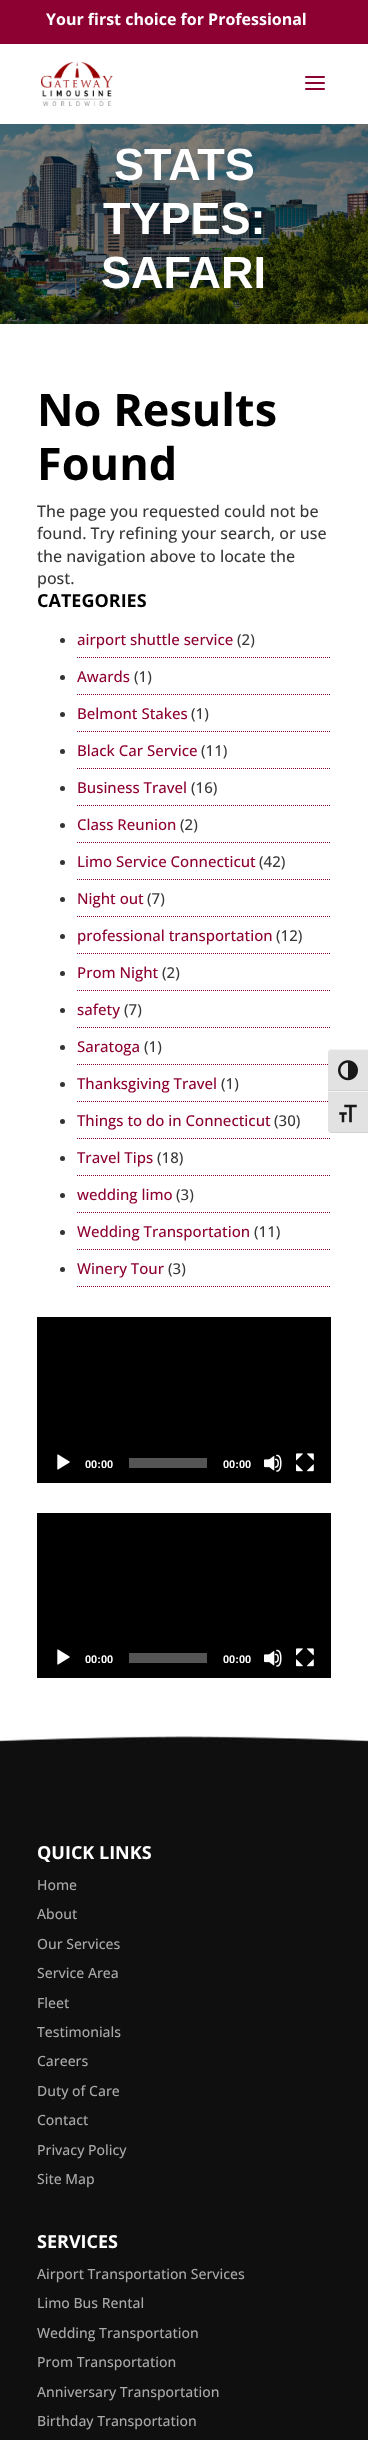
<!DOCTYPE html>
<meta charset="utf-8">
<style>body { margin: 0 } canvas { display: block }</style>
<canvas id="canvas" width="368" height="2440"></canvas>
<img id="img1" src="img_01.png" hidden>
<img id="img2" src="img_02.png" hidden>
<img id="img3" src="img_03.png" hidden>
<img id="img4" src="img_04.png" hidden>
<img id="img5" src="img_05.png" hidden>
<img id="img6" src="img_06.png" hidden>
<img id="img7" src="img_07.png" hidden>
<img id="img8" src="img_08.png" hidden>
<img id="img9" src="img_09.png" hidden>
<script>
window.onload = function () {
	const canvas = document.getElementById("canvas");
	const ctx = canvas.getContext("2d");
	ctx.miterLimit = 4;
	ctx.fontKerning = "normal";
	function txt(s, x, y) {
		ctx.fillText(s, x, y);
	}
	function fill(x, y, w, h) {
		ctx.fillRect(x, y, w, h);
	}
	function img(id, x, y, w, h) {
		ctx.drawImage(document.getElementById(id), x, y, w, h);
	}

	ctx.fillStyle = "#FFFFFF";
	fill(0, 0, 368, 2440);
	ctx.fillStyle = "#8D0032";
	fill(0, 0, 368, 44);
	img("img1", 41, 62, 72, 44);
	img("img2", 305, 76, 20, 14);
	img("img3", 0, 124, 368, 200);
	ctx.beginPath();
	ctx.moveTo(77, 657.5);
	ctx.lineTo(331, 657.5);
	ctx.strokeStyle = "#8D0032";
	ctx.setLineDash([1, 1]);
	ctx.stroke();
	ctx.fillStyle = "#333333";
	ctx.beginPath();
	ctx.arc(62.5, 640.5, 2.5, 0, Math.PI * 2);
	ctx.fill();
	ctx.beginPath();
	ctx.moveTo(77, 694.5);
	ctx.lineTo(331, 694.5);
	ctx.stroke();
	ctx.beginPath();
	ctx.arc(62.5, 677.5, 2.5, 0, Math.PI * 2);
	ctx.fill();
	ctx.beginPath();
	ctx.moveTo(77, 731.5);
	ctx.lineTo(331, 731.5);
	ctx.stroke();
	ctx.beginPath();
	ctx.arc(62.5, 714.5, 2.5, 0, Math.PI * 2);
	ctx.fill();
	ctx.beginPath();
	ctx.moveTo(77, 768.5);
	ctx.lineTo(331, 768.5);
	ctx.stroke();
	ctx.beginPath();
	ctx.arc(62.5, 751.5, 2.5, 0, Math.PI * 2);
	ctx.fill();
	ctx.beginPath();
	ctx.moveTo(77, 805.5);
	ctx.lineTo(331, 805.5);
	ctx.stroke();
	ctx.beginPath();
	ctx.arc(62.5, 788.5, 2.5, 0, Math.PI * 2);
	ctx.fill();
	ctx.beginPath();
	ctx.moveTo(77, 842.5);
	ctx.lineTo(331, 842.5);
	ctx.stroke();
	ctx.beginPath();
	ctx.arc(62.5, 825.5, 2.5, 0, Math.PI * 2);
	ctx.fill();
	ctx.beginPath();
	ctx.moveTo(77, 879.5);
	ctx.lineTo(331, 879.5);
	ctx.stroke();
	ctx.beginPath();
	ctx.arc(62.5, 862.5, 2.5, 0, Math.PI * 2);
	ctx.fill();
	ctx.beginPath();
	ctx.moveTo(77, 916.5);
	ctx.lineTo(331, 916.5);
	ctx.stroke();
	ctx.beginPath();
	ctx.arc(62.5, 899.5, 2.5, 0, Math.PI * 2);
	ctx.fill();
	ctx.beginPath();
	ctx.moveTo(77, 953.5);
	ctx.lineTo(331, 953.5);
	ctx.stroke();
	ctx.beginPath();
	ctx.arc(62.5, 936.5, 2.5, 0, Math.PI * 2);
	ctx.fill();
	ctx.beginPath();
	ctx.moveTo(77, 990.5);
	ctx.lineTo(331, 990.5);
	ctx.stroke();
	ctx.beginPath();
	ctx.arc(62.5, 973.5, 2.5, 0, Math.PI * 2);
	ctx.fill();
	ctx.beginPath();
	ctx.moveTo(77, 1027.5);
	ctx.lineTo(331, 1027.5);
	ctx.stroke();
	ctx.beginPath();
	ctx.arc(62.5, 1010.5, 2.5, 0, Math.PI * 2);
	ctx.fill();
	ctx.beginPath();
	ctx.moveTo(77, 1064.5);
	ctx.lineTo(331, 1064.5);
	ctx.stroke();
	ctx.beginPath();
	ctx.arc(62.5, 1047.5, 2.5, 0, Math.PI * 2);
	ctx.fill();
	ctx.beginPath();
	ctx.moveTo(77, 1101.5);
	ctx.lineTo(331, 1101.5);
	ctx.stroke();
	ctx.beginPath();
	ctx.arc(62.5, 1084.5, 2.5, 0, Math.PI * 2);
	ctx.fill();
	ctx.beginPath();
	ctx.moveTo(77, 1138.5);
	ctx.lineTo(331, 1138.5);
	ctx.stroke();
	ctx.beginPath();
	ctx.arc(62.5, 1121.5, 2.5, 0, Math.PI * 2);
	ctx.fill();
	ctx.beginPath();
	ctx.moveTo(77, 1175.5);
	ctx.lineTo(331, 1175.5);
	ctx.stroke();
	ctx.beginPath();
	ctx.arc(62.5, 1158.5, 2.5, 0, Math.PI * 2);
	ctx.fill();
	ctx.beginPath();
	ctx.moveTo(77, 1212.5);
	ctx.lineTo(331, 1212.5);
	ctx.stroke();
	ctx.beginPath();
	ctx.arc(62.5, 1195.5, 2.5, 0, Math.PI * 2);
	ctx.fill();
	ctx.beginPath();
	ctx.moveTo(77, 1249.5);
	ctx.lineTo(331, 1249.5);
	ctx.stroke();
	ctx.beginPath();
	ctx.arc(62.5, 1232.5, 2.5, 0, Math.PI * 2);
	ctx.fill();
	ctx.beginPath();
	ctx.moveTo(77, 1286.5);
	ctx.lineTo(331, 1286.5);
	ctx.stroke();
	ctx.beginPath();
	ctx.arc(62.5, 1269.5, 2.5, 0, Math.PI * 2);
	ctx.fill();
	ctx.fillStyle = "#000000";
	fill(37, 1317, 294, 166);
	img("img4", 57, 1454, 13, 16);
	ctx.fillStyle = "#545454";
	fill(129, 1458, 78, 10);
	img("img5", 264, 1454, 18, 18);
	img("img6", 296, 1453, 18, 19);
	ctx.fillStyle = "#000000";
	fill(37, 1513, 294, 165);
	img("img4", 57, 1649, 13, 16);
	ctx.fillStyle = "#545454";
	fill(129, 1653, 78, 10);
	img("img5", 264, 1649, 18, 18);
	img("img6", 296, 1648, 18, 19);
	ctx.fillStyle = "#0F0F0F";
	fill(0, 1744, 368, 696);
	img("img7", 0, 1736, 368, 8);
	ctx.fillStyle = "#E2E2E2";
	ctx.beginPath();
	ctx.roundRect(328, 1049, 40, 42, [4, 0, 0, 0]);
	ctx.fill();
	ctx.fillStyle = "#F5F5F5";
	ctx.beginPath();
	ctx.moveTo(332, 1050);
	ctx.lineTo(368, 1050);
	ctx.lineTo(368, 1049);
	ctx.lineTo(332, 1049);
	ctx.bezierCurveTo(330, 1049, 328, 1051, 328, 1053);
	ctx.bezierCurveTo(328, 1051, 330, 1050, 332, 1050);
	ctx.closePath();
	ctx.fill();
	ctx.fillStyle = "#D2D2D2";
	fill(328, 1090, 40, 1);
	img("img8", 338, 1060, 20, 21);
	ctx.fillStyle = "#E2E2E2";
	ctx.beginPath();
	ctx.roundRect(328, 1091, 40, 42, [0, 0, 0, 4]);
	ctx.fill();
	ctx.fillStyle = "#F5F5F5";
	fill(328, 1091, 40, 1);
	ctx.fillStyle = "#D2D2D2";
	ctx.beginPath();
	ctx.moveTo(368, 1133);
	ctx.lineTo(368, 1132);
	ctx.lineTo(332, 1132);
	ctx.bezierCurveTo(330, 1132, 328, 1131, 328, 1129);
	ctx.bezierCurveTo(328, 1131, 330, 1133, 332, 1133);
	ctx.closePath();
	ctx.fill();
	img("img9", 339, 1104, 18, 19);
	ctx.font = "bold 16px Open Sans";
	ctx.fillStyle = "#FFFFFF";
	txt("Your first choice for Professional", 46, 25);
	ctx.font = "bold 45px Liberation Sans";
	txt("STATS", 114, 180);
	txt("TYPES:", 103, 234);
	txt("SAFARI", 101, 288);
	ctx.font = "bold 45px Open Sans";
	ctx.fillStyle = "#000000";
	txt("No Results", 37, 426);
	txt("Found", 37, 480);
	ctx.font = "500 16px Open Sans";
	ctx.fillStyle = "#383838";
	txt("The page you requested could not be", 37, 517);
	txt("found. Try refining your search, or use", 37, 539);
	txt("the navigation above to locate the", 37, 562);
	txt("post.", 37, 584);
	ctx.font = "bold 18px Open Sans";
	ctx.fillStyle = "#000000";
	txt("CATEGORIES", 37, 607);
	ctx.font = "500 15px Open Sans";
	ctx.fillStyle = "#8D0032";
	txt("airport shuttle service", 77, 645);
	ctx.fillStyle = "#383838";
	txt("(2)", 237, 645);
	ctx.fillStyle = "#8D0032";
	txt("Awards", 77, 682);
	ctx.fillStyle = "#383838";
	txt("(1)", 134, 682);
	ctx.fillStyle = "#8D0032";
	txt("Belmont Stakes", 77, 719);
	ctx.fillStyle = "#383838";
	txt("(1)", 191, 719);
	ctx.fillStyle = "#8D0032";
	txt("Black Car Service", 77, 756);
	ctx.fillStyle = "#383838";
	txt("(11)", 201, 756);
	ctx.fillStyle = "#8D0032";
	txt("Business Travel", 77, 793);
	ctx.fillStyle = "#383838";
	txt("(16)", 191, 793);
	ctx.fillStyle = "#8D0032";
	txt("Class Reunion", 77, 830);
	ctx.fillStyle = "#383838";
	txt("(2)", 180, 830);
	ctx.fillStyle = "#8D0032";
	txt("Limo Service Connecticut", 77, 867);
	ctx.fillStyle = "#383838";
	txt("(42)", 259, 867);
	ctx.fillStyle = "#8D0032";
	txt("Night out", 77, 904);
	ctx.fillStyle = "#383838";
	txt("(7)", 147, 904);
	ctx.fillStyle = "#8D0032";
	txt("professional transportation", 77, 941);
	ctx.fillStyle = "#383838";
	txt("(12)", 276, 941);
	ctx.fillStyle = "#8D0032";
	txt("Prom Night", 77, 978);
	ctx.fillStyle = "#383838";
	txt("(2)", 162, 978);
	ctx.fillStyle = "#8D0032";
	txt("safety", 77, 1015);
	ctx.fillStyle = "#383838";
	txt("(7)", 124, 1015);
	ctx.fillStyle = "#8D0032";
	txt("Saratoga", 77, 1052);
	ctx.fillStyle = "#383838";
	txt("(1)", 144, 1052);
	ctx.fillStyle = "#8D0032";
	txt("Thanksgiving Travel", 77, 1089);
	ctx.fillStyle = "#383838";
	txt("(1)", 221, 1089);
	ctx.fillStyle = "#8D0032";
	txt("Things to do in Connecticut", 77, 1126);
	ctx.fillStyle = "#383838";
	txt("(30)", 274, 1126);
	ctx.fillStyle = "#8D0032";
	txt("Travel Tips", 77, 1163);
	ctx.fillStyle = "#383838";
	txt("(18)", 157, 1163);
	ctx.fillStyle = "#8D0032";
	txt("wedding limo", 77, 1200);
	ctx.fillStyle = "#383838";
	txt("(3)", 176, 1200);
	ctx.fillStyle = "#8D0032";
	txt("Wedding Transportation", 77, 1237);
	ctx.fillStyle = "#383838";
	txt("(11)", 254, 1237);
	ctx.fillStyle = "#8D0032";
	txt("Winery Tour", 77, 1274);
	ctx.fillStyle = "#383838";
	txt("(3)", 168, 1274);
	ctx.font = "bold 11px Liberation Sans";
	ctx.fillStyle = "#FFFFFF";
	txt("00:00", 85, 1468);
	txt("00:00", 223, 1468);
	txt("00:00", 85, 1663);
	txt("00:00", 223, 1663);
	ctx.font = "bold 18px Open Sans";
	txt("QUICK LINKS", 37, 1859);
	ctx.font = "500 14px Open Sans";
	ctx.fillStyle = "#A9A9A9";
	txt("Home", 37, 1890);
	txt("About", 37, 1919);
	txt("Our Services", 37, 1949);
	txt("Service Area", 37, 1978);
	txt("Fleet", 37, 2008);
	txt("Testimonials", 37, 2037);
	txt("Careers", 37, 2066);
	txt("Duty of Care", 37, 2096);
	txt("Contact", 37, 2125);
	txt("Privacy Policy", 37, 2155);
	txt("Site Map", 37, 2184);
	ctx.font = "bold 18px Open Sans";
	ctx.fillStyle = "#FFFFFF";
	txt("SERVICES", 37, 2248);
	ctx.font = "500 14px Open Sans";
	ctx.fillStyle = "#A9A9A9";
	txt("Airport Transportation Services", 37, 2279);
	txt("Limo Bus Rental", 37, 2308);
	txt("Wedding Transportation", 37, 2338);
	txt("Prom Transportation", 37, 2367);
	txt("Anniversary Transportation", 37, 2397);
	txt("Birthday Transportation", 37, 2426);
};
</script>
